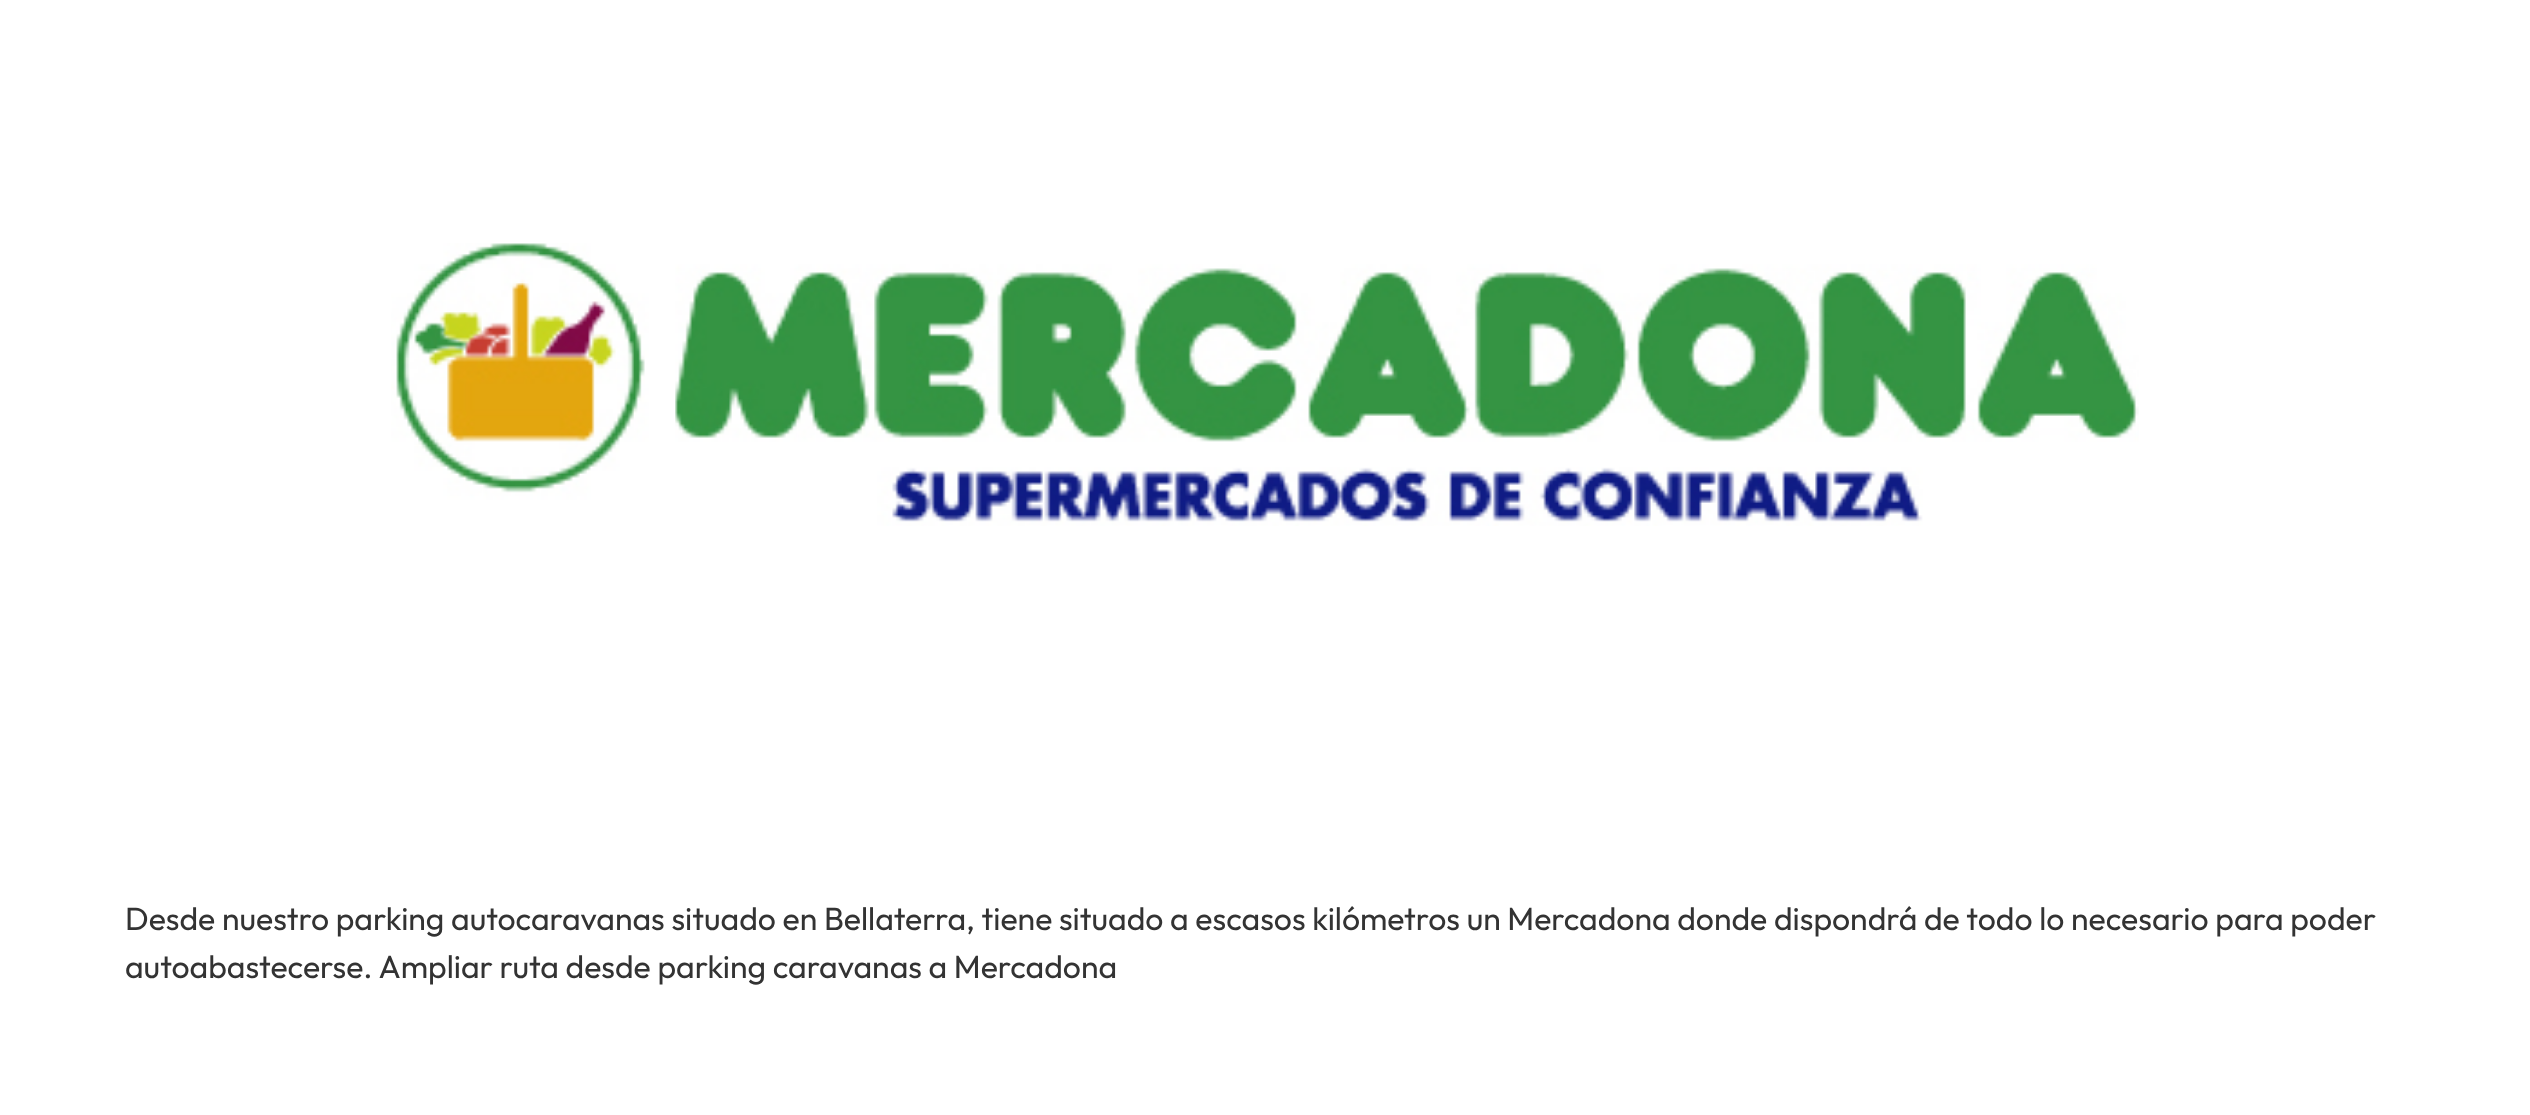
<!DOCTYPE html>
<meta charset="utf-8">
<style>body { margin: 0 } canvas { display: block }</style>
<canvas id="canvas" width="2530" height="1115"></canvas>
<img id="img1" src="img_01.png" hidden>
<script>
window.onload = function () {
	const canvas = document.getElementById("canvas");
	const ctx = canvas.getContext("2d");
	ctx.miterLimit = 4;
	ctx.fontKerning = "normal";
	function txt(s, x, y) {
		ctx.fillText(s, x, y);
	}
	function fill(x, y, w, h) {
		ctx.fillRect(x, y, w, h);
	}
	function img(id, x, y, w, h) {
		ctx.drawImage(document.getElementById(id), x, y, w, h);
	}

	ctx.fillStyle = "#FFFFFF";
	fill(0, 0, 2530, 1115);
	img("img1", 391, 243, 1748, 283);
	ctx.font = "32px Outfit";
	ctx.fillStyle = "#333333";
	txt("Desde nuestro parking autocaravanas situado en Bellaterra, tiene situado a escasos kilómetros un Mercadona donde dispondrá de todo lo necesario para poder", 125, 930);
	txt("autoabastecerse. Ampliar ruta desde parking caravanas a Mercadona", 125, 978);
};
</script>
